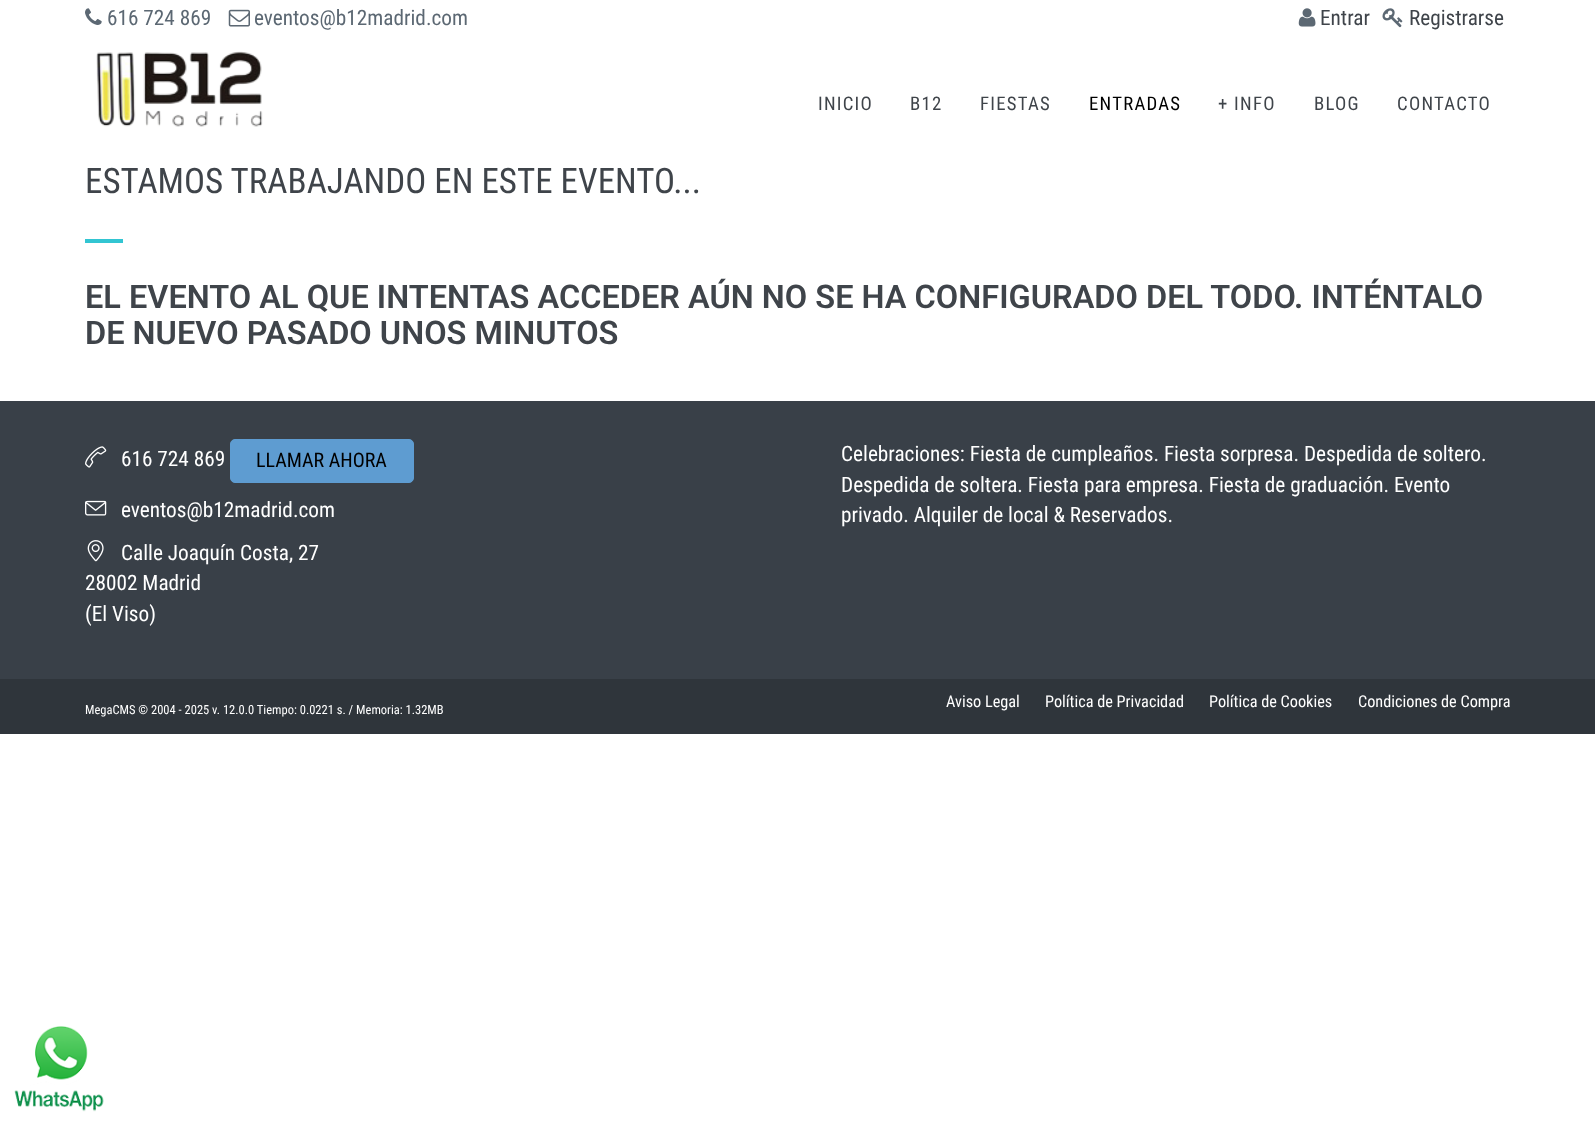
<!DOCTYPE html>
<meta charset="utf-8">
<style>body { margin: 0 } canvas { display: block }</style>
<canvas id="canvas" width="1595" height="1140"></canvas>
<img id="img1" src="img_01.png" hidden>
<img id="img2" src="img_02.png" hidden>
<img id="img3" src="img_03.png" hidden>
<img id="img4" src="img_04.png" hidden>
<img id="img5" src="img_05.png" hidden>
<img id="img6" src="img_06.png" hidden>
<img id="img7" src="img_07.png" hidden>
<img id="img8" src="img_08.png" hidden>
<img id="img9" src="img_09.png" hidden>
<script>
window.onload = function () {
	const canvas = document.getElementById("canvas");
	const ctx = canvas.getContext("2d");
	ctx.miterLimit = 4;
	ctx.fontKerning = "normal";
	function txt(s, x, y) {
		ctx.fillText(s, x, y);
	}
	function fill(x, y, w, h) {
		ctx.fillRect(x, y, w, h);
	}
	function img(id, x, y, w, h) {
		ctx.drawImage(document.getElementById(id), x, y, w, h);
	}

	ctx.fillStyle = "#FFFFFF";
	fill(0, 0, 1595, 1140);
	img("img1", 85, 8, 17, 17);
	img("img2", 228, 9, 22, 18);
	img("img3", 1298, 8, 18, 19);
	img("img4", 1382, 8, 21, 20);
	img("img5", 96, 51, 167, 76);
	ctx.fillStyle = "#32C5D2";
	fill(85, 239, 38, 4);
	ctx.fillStyle = "#394048";
	fill(0, 401, 1595, 278);
	img("img6", 85, 446, 22, 22);
	ctx.fillStyle = "#5E9CD1";
	ctx.beginPath();
	ctx.roundRect(230.5, 439.5, 183, 43, 4.5);
	ctx.fill();
	ctx.strokeStyle = "#5E9CD1";
	ctx.stroke();
	img("img7", 85, 500, 22, 16);
	img("img8", 87, 540, 17, 22);
	ctx.fillStyle = "#2F353B";
	fill(0, 679, 1595, 55);
	img("img9", 14, 1026, 90, 86);
	ctx.font = "21.25px Roboto Condensed";
	ctx.fillStyle = "#5C6873";
	txt("616 724 869", 107, 25);
	txt("eventos@b12madrid.com", 254, 25);
	ctx.fillStyle = "#3F444A";
	txt("Entrar", 1320, 25);
	txt("Registrarse", 1409, 25);
	ctx.letterSpacing = "1.25px";
	ctx.font = "18.75px Roboto Condensed";
	txt("INICIO", 818, 110);
	txt("B12", 910, 110);
	txt("FIESTAS", 980, 110);
	ctx.fillStyle = "#000000";
	txt("ENTRADAS", 1089, 110);
	ctx.fillStyle = "#3F444A";
	txt("+ INFO", 1218, 110);
	txt("BLOG", 1314, 110);
	txt("CONTACTO", 1397, 110);
	ctx.letterSpacing = "0px";
	ctx.font = "35px Roboto Condensed";
	txt("ESTAMOS TRABAJANDO EN ESTE EVENTO...", 85, 193);
	ctx.font = "600 32.5px Roboto";
	txt("EL EVENTO AL QUE INTENTAS ACCEDER AÚN NO SE HA CONFIGURADO DEL TODO. INTÉNTALO", 85, 308);
	txt("DE NUEVO PASADO UNOS MINUTOS", 85, 344);
	ctx.font = "21.25px Roboto Condensed";
	ctx.fillStyle = "#FFFFFF";
	txt("616 724 869", 121, 466);
	ctx.font = "20px Roboto Condensed";
	ctx.fillStyle = "#000000";
	txt("LLAMAR AHORA", 256, 467);
	ctx.font = "21.25px Roboto Condensed";
	ctx.fillStyle = "#FFFFFF";
	txt("eventos@b12madrid.com", 121, 517);
	txt("Calle Joaquín Costa, 27", 121, 560);
	txt("28002 Madrid", 85, 590);
	txt("(El Viso)", 85, 621);
	txt("Celebraciones: Fiesta de cumpleaños. Fiesta sorpresa. Despedida de soltero.", 841, 461);
	txt("Despedida de soltera. Fiesta para empresa. Fiesta de graduación. Evento", 841, 492);
	txt("privado. Alquiler de local & Reservados.", 841, 522);
	ctx.font = "12.5px Roboto Condensed";
	txt("MegaCMS © 2004 - 2025 v. 12.0.0 Tiempo: 0.0221 s. / Memoria: 1.32MB", 85, 714);
	ctx.font = "16.25px Roboto Condensed";
	txt("Aviso Legal", 946, 707);
	txt("Política de Privacidad", 1045, 707);
	txt("Política de Cookies", 1209, 707);
	txt("Condiciones de Compra", 1358, 707);
};
</script>
